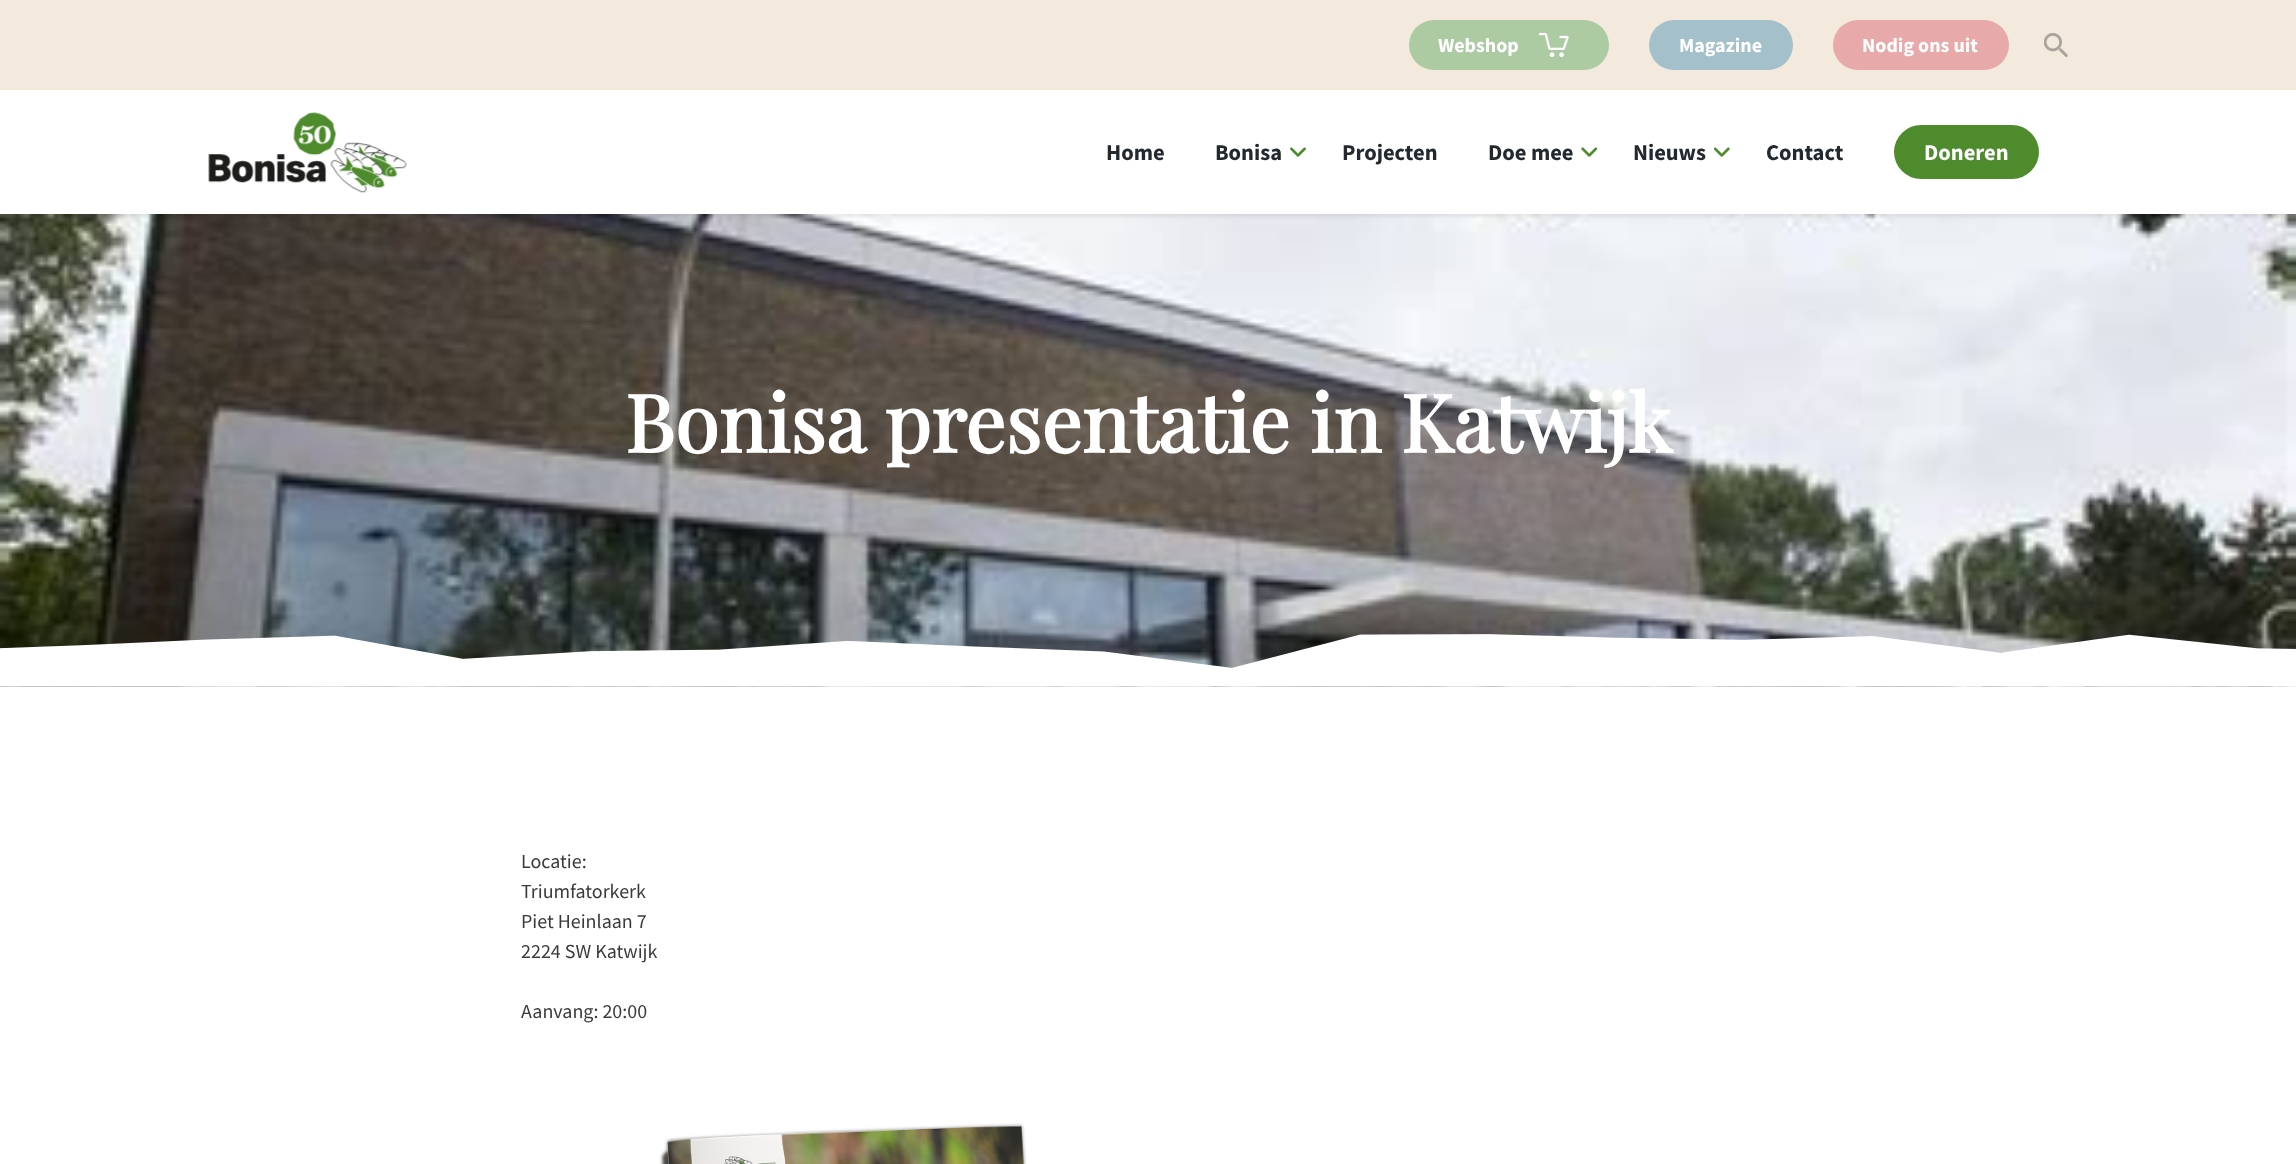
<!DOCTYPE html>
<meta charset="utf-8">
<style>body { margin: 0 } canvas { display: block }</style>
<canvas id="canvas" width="2296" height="1164"></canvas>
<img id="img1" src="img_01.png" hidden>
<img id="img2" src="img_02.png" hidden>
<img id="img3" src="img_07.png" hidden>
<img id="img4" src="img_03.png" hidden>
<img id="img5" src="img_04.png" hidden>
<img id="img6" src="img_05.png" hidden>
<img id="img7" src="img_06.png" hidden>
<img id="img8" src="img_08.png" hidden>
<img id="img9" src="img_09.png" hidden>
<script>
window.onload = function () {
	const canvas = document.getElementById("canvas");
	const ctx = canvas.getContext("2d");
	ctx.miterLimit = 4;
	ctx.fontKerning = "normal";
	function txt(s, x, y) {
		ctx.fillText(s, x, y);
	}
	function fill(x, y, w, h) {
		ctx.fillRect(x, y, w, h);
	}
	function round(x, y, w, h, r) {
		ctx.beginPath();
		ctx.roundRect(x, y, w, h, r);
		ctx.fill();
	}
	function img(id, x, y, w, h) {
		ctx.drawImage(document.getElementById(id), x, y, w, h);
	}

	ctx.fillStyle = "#FFFFFF";
	fill(0, 0, 2296, 1164);
	ctx.fillStyle = "#F3E9DD";
	fill(0, 0, 2296, 90);
	ctx.fillStyle = "#ACCBA3";
	round(1409, 20, 200, 50, 25);
	img("img1", 1539, 32, 30, 25);
	ctx.fillStyle = "#A3C0CB";
	round(1649, 20, 144, 50, 25);
	ctx.fillStyle = "#E7A9A9";
	round(1833, 20, 176, 50, 25);
	img("img2", 2044, 33, 24, 24);
	img("img3", 0, 214, 2296, 473);
	ctx.fillStyle = "rgba(0, 0, 0, 0.1)";
	ctx.filter = "blur(2.5px)";
	ctx.beginPath();
	ctx.rect(0, 93, 2296, 123);
	ctx.fill();
	ctx.filter = "none";
	ctx.fillStyle = "#FFFFFF";
	fill(0, 90, 2296, 124);
	img("img4", 208, 112, 199, 81);
	img("img5", 1290, 147, 16, 10);
	img("img6", 1581, 147, 17, 10);
	img("img7", 1714, 147, 16, 10);
	ctx.fillStyle = "#4D8B2C";
	round(1894, 125, 145, 54, 27);
	img("img8", 0, 634, 2296, 52);
	img("img9", 659, 1123, 368, 41);
	ctx.font = "bold 20px Source Sans Pro";
	ctx.fillStyle = "#FFFFFF";
	txt("Webshop", 1438, 52);
	txt("Magazine", 1679, 52);
	txt("Nodig ons uit", 1862, 52);
	ctx.font = "bold 22.5px Source Sans Pro";
	ctx.fillStyle = "#22292F";
	txt("Home", 1106, 160);
	txt("Bonisa", 1215, 160);
	txt("Projecten", 1342, 160);
	txt("Doe mee", 1488, 160);
	txt("Nieuws", 1633, 160);
	txt("Contact", 1766, 160);
	ctx.fillStyle = "#FFFFFF";
	txt("Doneren", 1924, 160);
	ctx.font = "bold 80px Playfair Display";
	txt("Bonisa presentatie in Katwijk", 625, 453);
	ctx.font = "20px Source Sans Pro";
	ctx.fillStyle = "#3B3B3B";
	txt("Locatie:", 521, 868);
	txt("Triumfatorkerk", 521, 898);
	txt("Piet Heinlaan 7", 521, 928);
	txt("2224 SW Katwijk", 521, 958);
	txt("Aanvang: 20:00", 521, 1018);
};
</script>
